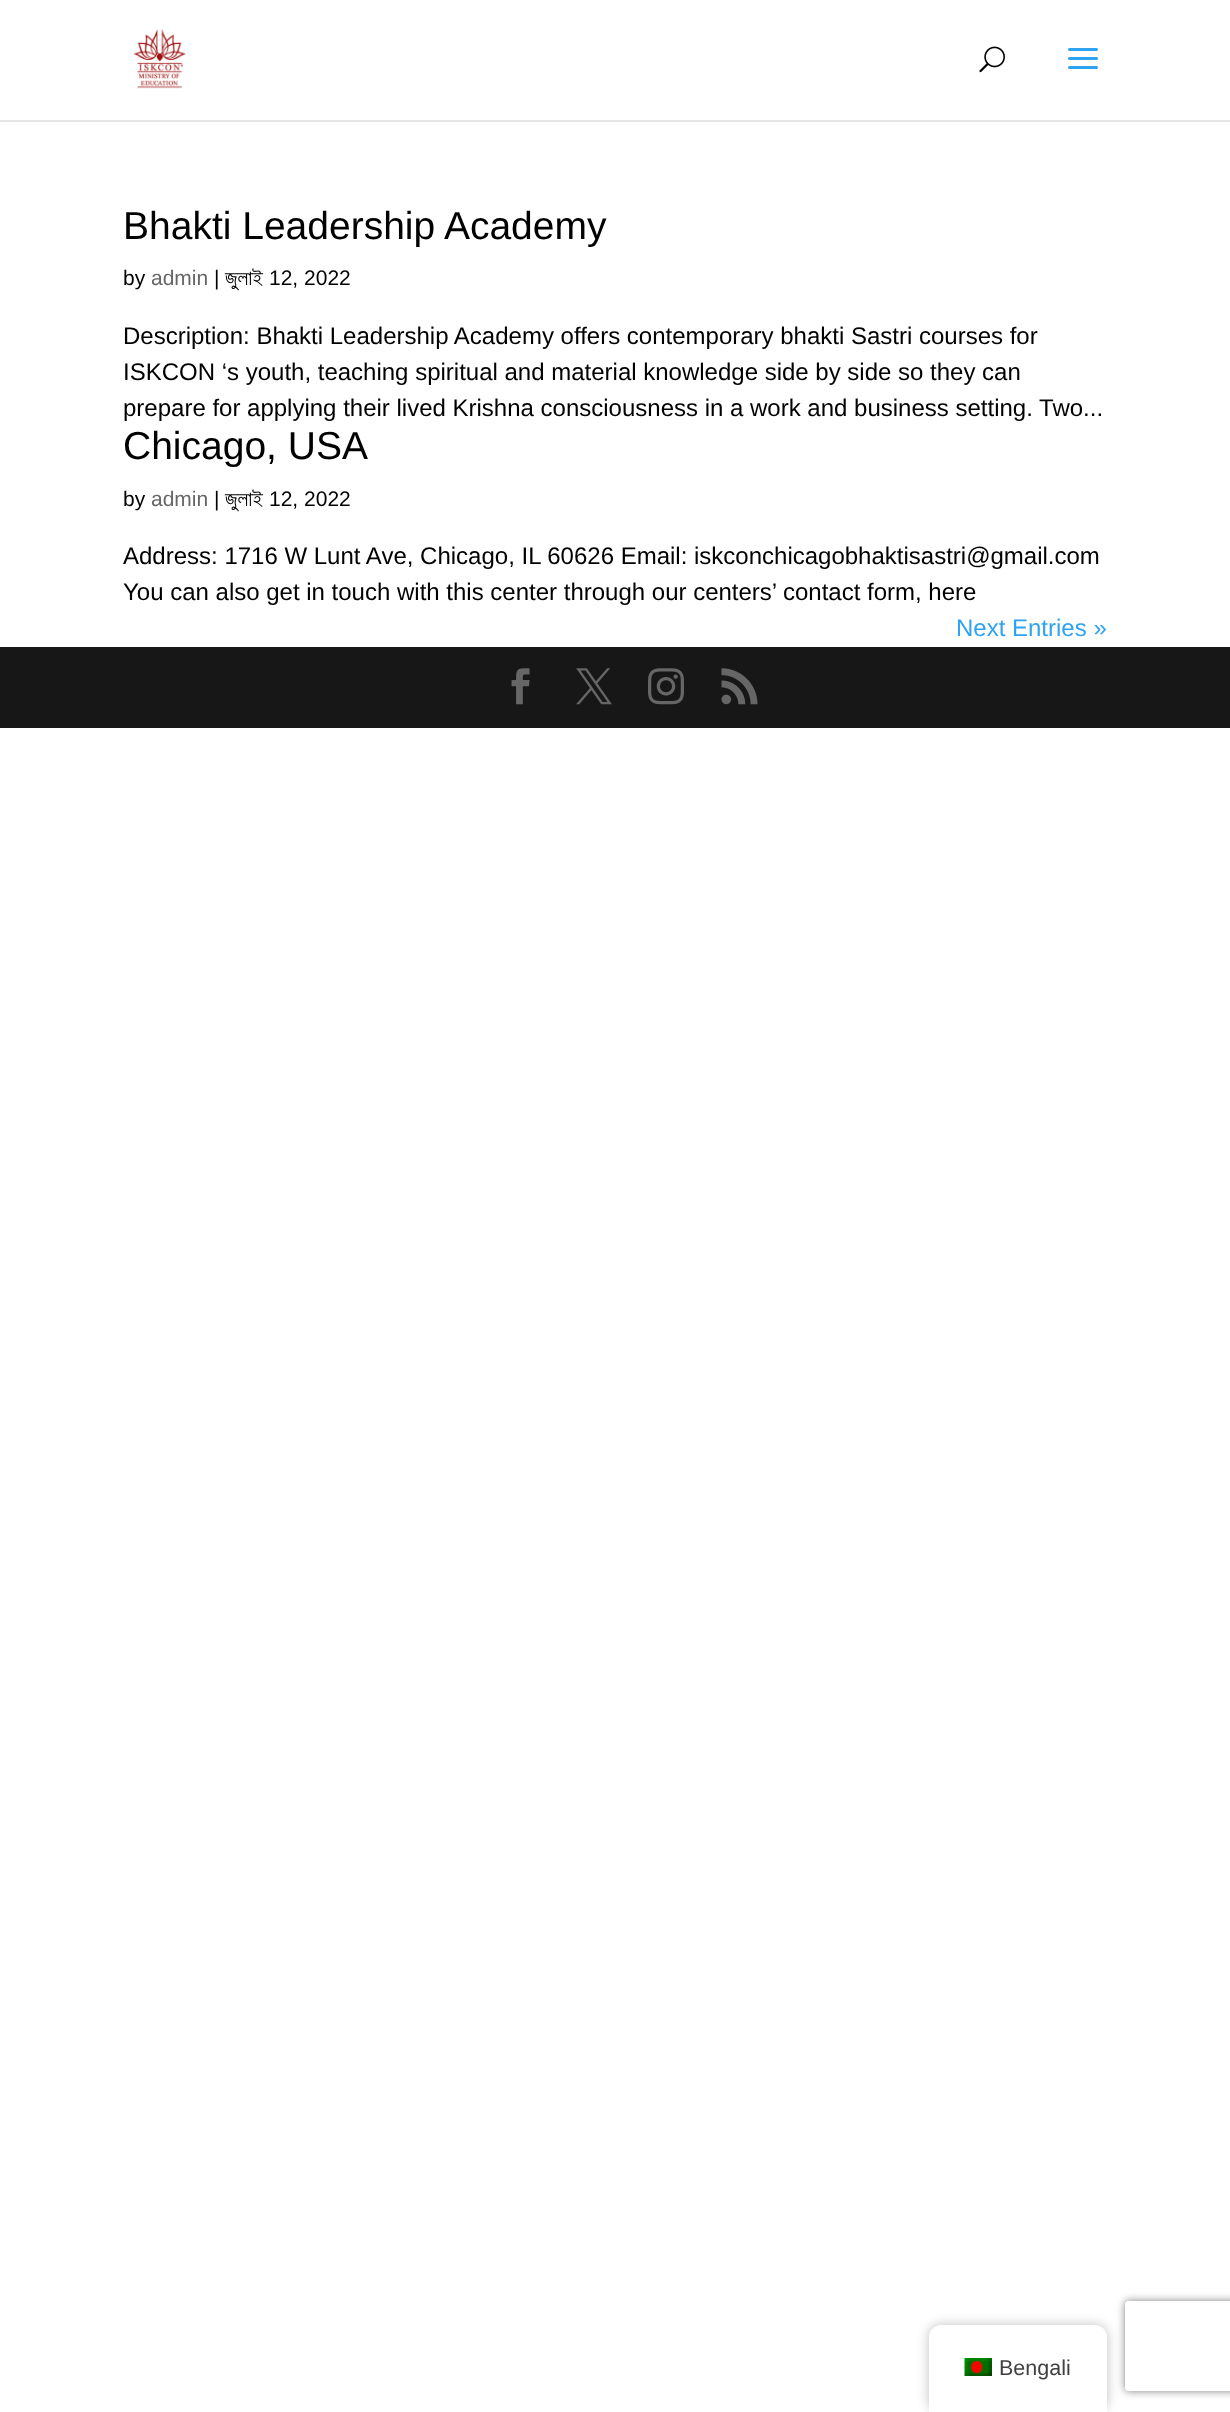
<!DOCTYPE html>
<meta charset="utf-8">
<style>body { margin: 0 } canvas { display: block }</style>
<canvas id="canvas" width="1230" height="2412"></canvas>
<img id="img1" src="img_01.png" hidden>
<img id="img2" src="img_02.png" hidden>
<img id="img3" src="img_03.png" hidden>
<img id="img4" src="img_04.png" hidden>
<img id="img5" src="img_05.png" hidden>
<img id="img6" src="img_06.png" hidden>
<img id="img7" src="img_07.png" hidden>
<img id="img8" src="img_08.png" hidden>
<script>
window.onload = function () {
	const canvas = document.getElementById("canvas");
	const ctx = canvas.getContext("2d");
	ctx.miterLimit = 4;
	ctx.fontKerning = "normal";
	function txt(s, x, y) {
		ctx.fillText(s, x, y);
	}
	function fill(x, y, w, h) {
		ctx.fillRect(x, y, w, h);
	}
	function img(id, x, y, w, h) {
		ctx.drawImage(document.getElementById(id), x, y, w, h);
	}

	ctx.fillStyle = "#FFFFFF";
	fill(0, 0, 1230, 2412);
	ctx.fillStyle = "#E6E6E6";
	fill(0, 120, 1230, 2);
	img("img1", 133, 29, 53, 60);
	img("img2", 979, 46, 26, 27);
	img("img3", 1068, 48, 30, 21);
	ctx.fillStyle = "#171717";
	fill(0, 647, 1230, 81);
	img("img4", 511, 668, 19, 37);
	img("img5", 576, 668, 36, 37);
	img("img6", 648, 668, 36, 37);
	img("img7", 721, 668, 37, 37);
	ctx.fillStyle = "rgba(0, 0, 0, 0.25)";
	ctx.filter = "blur(6px)";
	ctx.beginPath();
	ctx.roundRect(929, 2325, 178, 87, 12);
	ctx.fill();
	ctx.filter = "none";
	ctx.fillStyle = "#FFFFFF";
	ctx.beginPath();
	ctx.roundRect(929, 2325, 178, 87, [12, 12, 0, 0]);
	ctx.fill();
	img("img8", 964, 2358, 28, 18);
	ctx.save();
	ctx.beginPath();
	ctx.moveTo(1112, 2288);
	ctx.lineTo(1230, 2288);
	ctx.lineTo(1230, 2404);
	ctx.lineTo(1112, 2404);
	ctx.closePath();
	ctx.moveTo(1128, 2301);
	ctx.lineTo(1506, 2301);
	ctx.bezierCurveTo(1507.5, 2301, 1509, 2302.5, 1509, 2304);
	ctx.lineTo(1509, 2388);
	ctx.bezierCurveTo(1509, 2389.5, 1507.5, 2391, 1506, 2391);
	ctx.lineTo(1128, 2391);
	ctx.bezierCurveTo(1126.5, 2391, 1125, 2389.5, 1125, 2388);
	ctx.lineTo(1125, 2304);
	ctx.bezierCurveTo(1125, 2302.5, 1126.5, 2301, 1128, 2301);
	ctx.closePath();
	ctx.clip("evenodd");
	ctx.fillStyle = "#808080";
	ctx.filter = "blur(4px)";
	ctx.beginPath();
	ctx.roundRect(1125, 2301, 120, 90, 3);
	ctx.fill();
	ctx.filter = "none";
	ctx.restore();
	ctx.font = "39px Liberation Sans";
	ctx.fillStyle = "#000000";
	txt("Bhakti Leadership Academy", 123, 239);
	ctx.font = "21px Liberation Sans";
	txt("by", 123, 285);
	ctx.fillStyle = "#666666";
	txt("admin", 151, 285);
	ctx.fillStyle = "#000000";
	txt("|", 214, 285);
	ctx.font = "21px FreeSans";
	txt("জুলাই", 225, 285);
	ctx.font = "21px Liberation Sans";
	txt("12, 2022", 269, 285);
	ctx.font = "24px Liberation Sans";
	txt("Description: Bhakti Leadership Academy offers contemporary bhakti Sastri courses for", 123, 344);
	txt("ISKCON ‘s youth, teaching spiritual and material knowledge side by side so they can", 123, 380);
	txt("prepare for applying their lived Krishna consciousness in a work and business setting. Two...", 123, 416);
	ctx.font = "39px Liberation Sans";
	txt("Chicago, USA", 123, 459);
	ctx.font = "21px Liberation Sans";
	txt("by", 123, 506);
	ctx.fillStyle = "#666666";
	txt("admin", 151, 506);
	ctx.fillStyle = "#000000";
	txt("|", 214, 506);
	ctx.font = "21px FreeSans";
	txt("জুলাই", 225, 506);
	ctx.font = "21px Liberation Sans";
	txt("12, 2022", 269, 506);
	ctx.font = "24px Liberation Sans";
	txt("Address: 1716 W Lunt Ave, Chicago, IL 60626 Email: iskconchicagobhaktisastri@gmail.com", 123, 564);
	txt("You can also get in touch with this center through our centers’ contact form, here", 123, 600);
	ctx.fillStyle = "#2EA3F2";
	txt("Next Entries »", 956, 636);
	ctx.font = "21.5px Liberation Sans";
	ctx.fillStyle = "#404040";
	txt("Bengali", 999, 2375);
};
</script>
